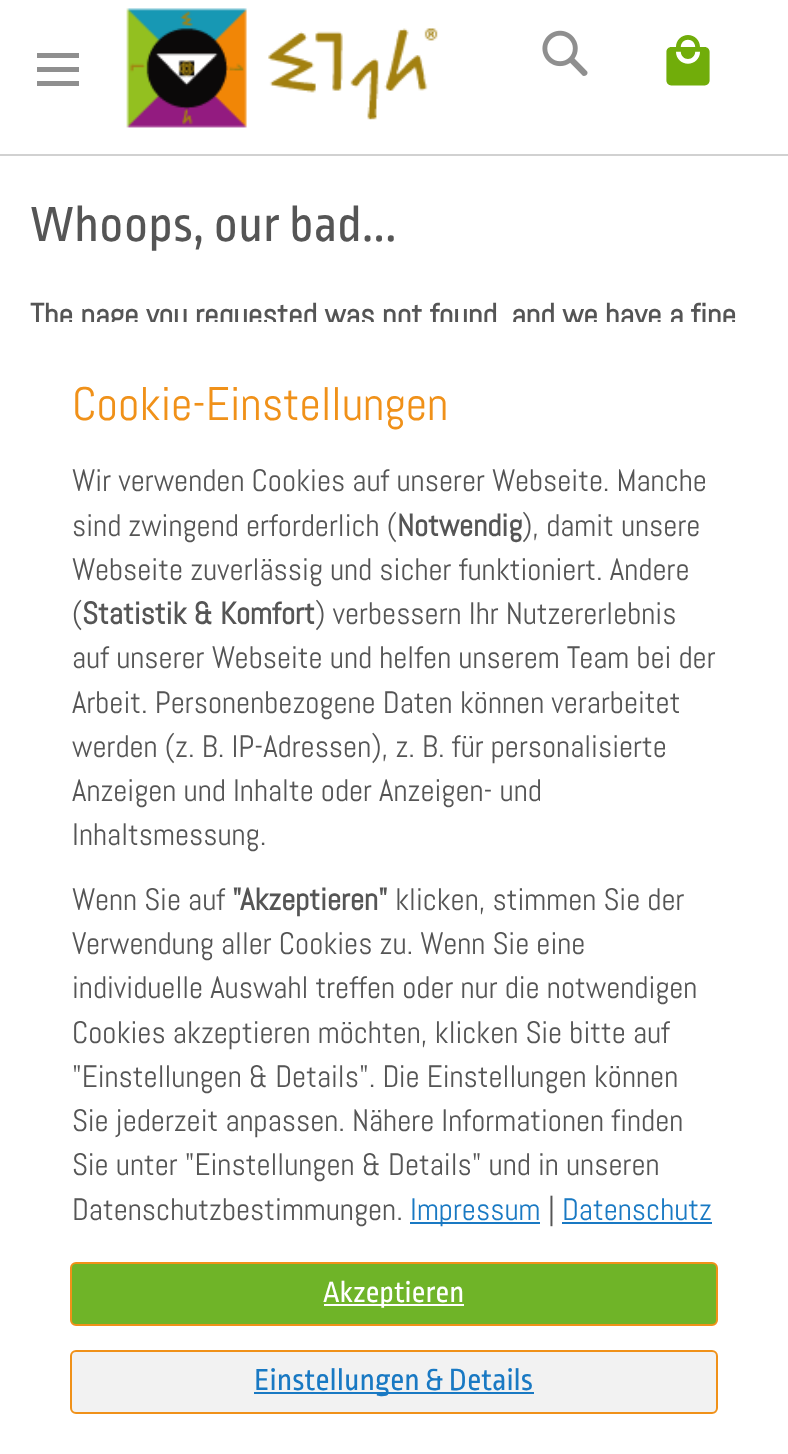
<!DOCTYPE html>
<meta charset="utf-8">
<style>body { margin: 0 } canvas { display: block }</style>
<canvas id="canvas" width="788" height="1454"></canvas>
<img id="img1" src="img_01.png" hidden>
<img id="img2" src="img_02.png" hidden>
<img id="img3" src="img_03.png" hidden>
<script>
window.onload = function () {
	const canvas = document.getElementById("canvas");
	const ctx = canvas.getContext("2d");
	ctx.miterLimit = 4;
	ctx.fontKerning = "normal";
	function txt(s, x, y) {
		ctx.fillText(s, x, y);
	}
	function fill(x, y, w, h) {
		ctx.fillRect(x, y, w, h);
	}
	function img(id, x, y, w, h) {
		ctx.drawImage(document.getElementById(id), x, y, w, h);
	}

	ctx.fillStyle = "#FFFFFF";
	fill(0, 0, 788, 1454);
	ctx.fillStyle = "#D1D1D1";
	fill(0, 154, 788, 2);
	ctx.fillStyle = "#8F8F8F";
	ctx.beginPath();
	ctx.moveTo(37, 53);
	ctx.lineTo(37, 58);
	ctx.lineTo(79, 58);
	ctx.lineTo(79, 53);
	ctx.closePath();
	ctx.moveTo(37, 72);
	ctx.lineTo(79, 72);
	ctx.lineTo(79, 67);
	ctx.lineTo(37, 67);
	ctx.closePath();
	ctx.moveTo(37, 86);
	ctx.lineTo(79, 86);
	ctx.lineTo(79, 81);
	ctx.lineTo(37, 81);
	ctx.closePath();
	ctx.fill();
	img("img1", 126, 8, 312, 120);
	img("img2", 542, 30, 46, 46);
	img("img3", 666, 35, 44, 51);
	ctx.fillStyle = "#1979C3";
	fill(410, 1222, 130, 2);
	fill(562, 1222, 150, 2);
	ctx.fillStyle = "#6FB428";
	ctx.beginPath();
	ctx.roundRect(71, 1263, 646, 62, 5);
	ctx.fill();
	ctx.strokeStyle = "#F09119";
	ctx.lineWidth = 2;
	ctx.stroke();
	ctx.fillStyle = "#FFFFFF";
	fill(324, 1304, 140, 2);
	ctx.fillStyle = "#F2F2F2";
	ctx.beginPath();
	ctx.roundRect(71, 1351, 646, 62, 5);
	ctx.fill();
	ctx.stroke();
	ctx.fillStyle = "#1979C3";
	fill(254, 1392, 280, 2);
	ctx.font = "52px Ropa Sans";
	ctx.fillStyle = "#555555";
	txt("Whoops, our bad...", 30, 241);
	ctx.font = "bold 32px Abel";
	txt("The page you requested was not found, and we have a fine", 30, 326);
	ctx.fillStyle = "#FFFFFF";
	fill(35, 322, 700, 11);
	ctx.font = "47px Abel";
	ctx.fillStyle = "#F09119";
	txt("Cookie-Einstellungen", 72, 420);
	ctx.font = "31px Abel";
	ctx.fillStyle = "#555555";
	txt("Wir verwenden Cookies auf unserer Webseite. Manche", 72, 491);
	txt("sind zwingend erforderlich (", 72, 536);
	ctx.font = "bold 31px Abel";
	txt("Notwendig", 397, 536);
	ctx.font = "31px Abel";
	txt("), damit unsere", 522, 536);
	txt("Webseite zuverlässig und sicher funktioniert. Andere", 72, 580);
	txt("(", 72, 624);
	ctx.font = "bold 31px Abel";
	txt("Statistik & Komfort", 82, 624);
	ctx.font = "31px Abel";
	txt(") verbessern Ihr Nutzererlebnis", 315, 624);
	txt("auf unserer Webseite und helfen unserem Team bei der", 72, 668);
	txt("Arbeit. Personenbezogene Daten können verarbeitet", 72, 713);
	txt("werden (z. B. IP-Adressen), z. B. für personalisierte", 72, 757);
	txt("Anzeigen und Inhalte oder Anzeigen- und", 72, 801);
	txt("Inhaltsmessung.", 72, 845);
	txt("Wenn Sie auf", 72, 910);
	ctx.font = "bold 31px Abel";
	txt("\"Akzeptieren\"", 232, 910);
	ctx.font = "31px Abel";
	txt("klicken, stimmen Sie der", 395, 910);
	txt("Verwendung aller Cookies zu. Wenn Sie eine", 72, 954);
	txt("individuelle Auswahl treffen oder nur die notwendigen", 72, 998);
	txt("Cookies akzeptieren möchten, klicken Sie bitte auf", 72, 1043);
	txt("\"Einstellungen & Details\". Die Einstellungen können", 72, 1087);
	txt("Sie jederzeit anpassen. Nähere Informationen finden", 72, 1131);
	txt("Sie unter \"Einstellungen & Details\" und in unseren", 72, 1175);
	txt("Datenschutzbestimmungen.", 72, 1220);
	ctx.fillStyle = "#1979C3";
	txt("Impressum", 410, 1220);
	ctx.fillStyle = "#555555";
	txt("|", 548, 1220);
	ctx.fillStyle = "#1979C3";
	txt("Datenschutz", 562, 1220);
	ctx.font = "31px Ropa Sans";
	ctx.fillStyle = "#FFFFFF";
	txt("Akzeptieren", 323, 1302);
	ctx.font = "32px Ropa Sans";
	ctx.fillStyle = "#1979C3";
	txt("Einstellungen & Details", 254, 1390);
};
</script>
